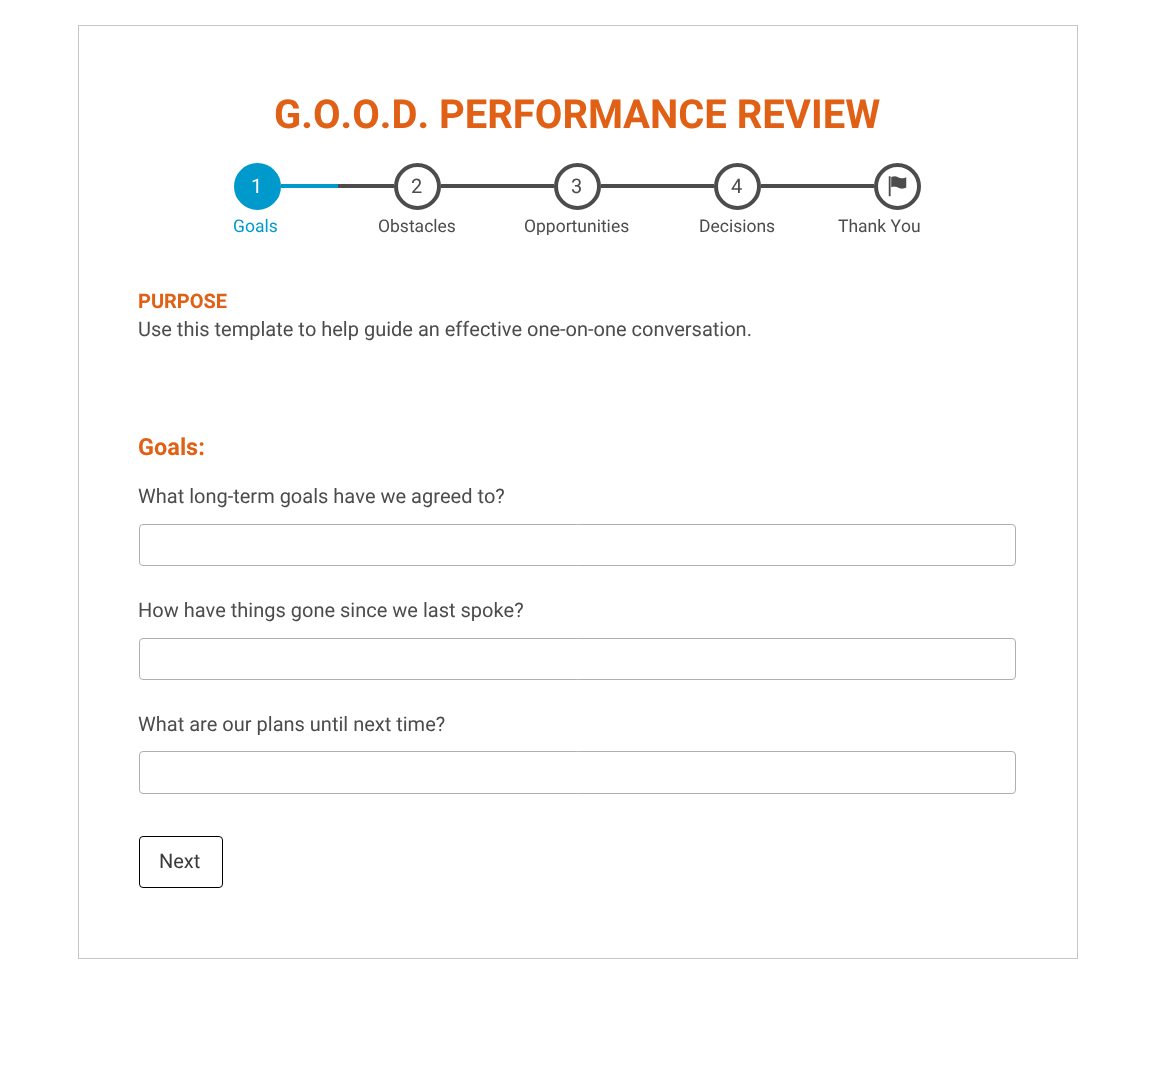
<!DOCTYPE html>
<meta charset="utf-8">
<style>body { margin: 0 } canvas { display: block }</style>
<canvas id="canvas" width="1153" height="1074"></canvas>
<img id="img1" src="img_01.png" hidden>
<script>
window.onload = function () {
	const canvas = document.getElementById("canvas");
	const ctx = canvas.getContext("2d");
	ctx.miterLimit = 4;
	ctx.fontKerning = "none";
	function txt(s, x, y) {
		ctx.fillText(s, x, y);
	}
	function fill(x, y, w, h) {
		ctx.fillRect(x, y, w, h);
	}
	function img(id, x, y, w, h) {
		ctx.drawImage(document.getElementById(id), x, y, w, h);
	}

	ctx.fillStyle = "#FFFFFF";
	fill(0, 0, 1153, 1074);
	ctx.strokeStyle = "#C6C6C6";
	ctx.strokeRect(78.5, 25.5, 999, 933);
	ctx.fillStyle = "#0099CC";
	ctx.beginPath();
	ctx.arc(257.5, 186.5, 21.5, 0, Math.PI * 2);
	ctx.fill();
	ctx.strokeStyle = "#0099CC";
	ctx.lineWidth = 4;
	ctx.stroke();
	fill(281, 184, 57, 4);
	ctx.fillStyle = "#4C4C4C";
	fill(338, 184, 56, 4);
	ctx.beginPath();
	ctx.arc(417.5, 186.5, 21.5, 0, Math.PI * 2);
	ctx.strokeStyle = "#4C4C4C";
	ctx.stroke();
	fill(441, 184, 113, 4);
	ctx.beginPath();
	ctx.arc(577.5, 186.5, 21.5, 0, Math.PI * 2);
	ctx.stroke();
	fill(601, 184, 113, 4);
	ctx.beginPath();
	ctx.arc(737.5, 186.5, 21.5, 0, Math.PI * 2);
	ctx.stroke();
	fill(761, 184, 113, 4);
	ctx.beginPath();
	ctx.arc(897.5, 186.5, 21.5, 0, Math.PI * 2);
	ctx.stroke();
	img("img1", 888, 176, 19, 21);
	ctx.beginPath();
	ctx.roundRect(139.5, 524.5, 876, 41, 3.5);
	ctx.strokeStyle = "#AFAFAF";
	ctx.lineWidth = 1;
	ctx.stroke();
	ctx.beginPath();
	ctx.roundRect(139.5, 638.5, 876, 41, 3.5);
	ctx.stroke();
	ctx.beginPath();
	ctx.roundRect(139.5, 751.5, 876, 42, 3.5);
	ctx.stroke();
	ctx.beginPath();
	ctx.roundRect(139.5, 836.5, 83, 51, 3.5);
	ctx.strokeStyle = "#000000";
	ctx.stroke();
	ctx.font = "bold 40px Roboto";
	ctx.fillStyle = "#E06016";
	txt("G.O.O.D.", 274, 128);
	txt("PERFORMANCE REVIEW", 439, 128);
	ctx.font = "20px Roboto";
	ctx.fillStyle = "#FFFFFF";
	txt("1", 251, 193);
	ctx.font = "17.5px Roboto";
	ctx.fillStyle = "#0099CC";
	txt("Goals", 233, 232);
	ctx.font = "20px Roboto";
	ctx.fillStyle = "#4C4C4C";
	txt("2", 411, 193);
	ctx.font = "17.5px Roboto";
	txt("Obstacles", 378, 232);
	ctx.font = "20px Roboto";
	txt("3", 571, 193);
	ctx.save();
	ctx.beginPath();
	ctx.rect(525, 215, 105, 20);
	ctx.clip();
	ctx.font = "17.5px Roboto";
	txt("Opportunities", 524, 232);
	ctx.restore();
	txt("4", 731, 193);
	ctx.font = "17.5px Roboto";
	txt("Decisions", 699, 232);
	txt("Thank You", 838, 232);
	ctx.font = "bold 20px Roboto";
	ctx.fillStyle = "#E06016";
	txt("PURPOSE", 138, 308);
	ctx.font = "20px Roboto";
	ctx.fillStyle = "#4C4C4C";
	txt("Use this template to help guide an effective one-on-one conversation.", 138, 336);
	ctx.font = "bold 23.5px Roboto";
	ctx.fillStyle = "#E06016";
	txt("Goals:", 138, 455);
	ctx.font = "20px Roboto";
	ctx.fillStyle = "#4C4C4C";
	txt("What long-term goals have we agreed to?", 138, 503);
	txt("How have things gone since we last spoke?", 138, 617);
	txt("What are our plans until next time?", 138, 731);
	ctx.fillStyle = "#3A3A3A";
	txt("Next", 159, 868);
};
</script>
